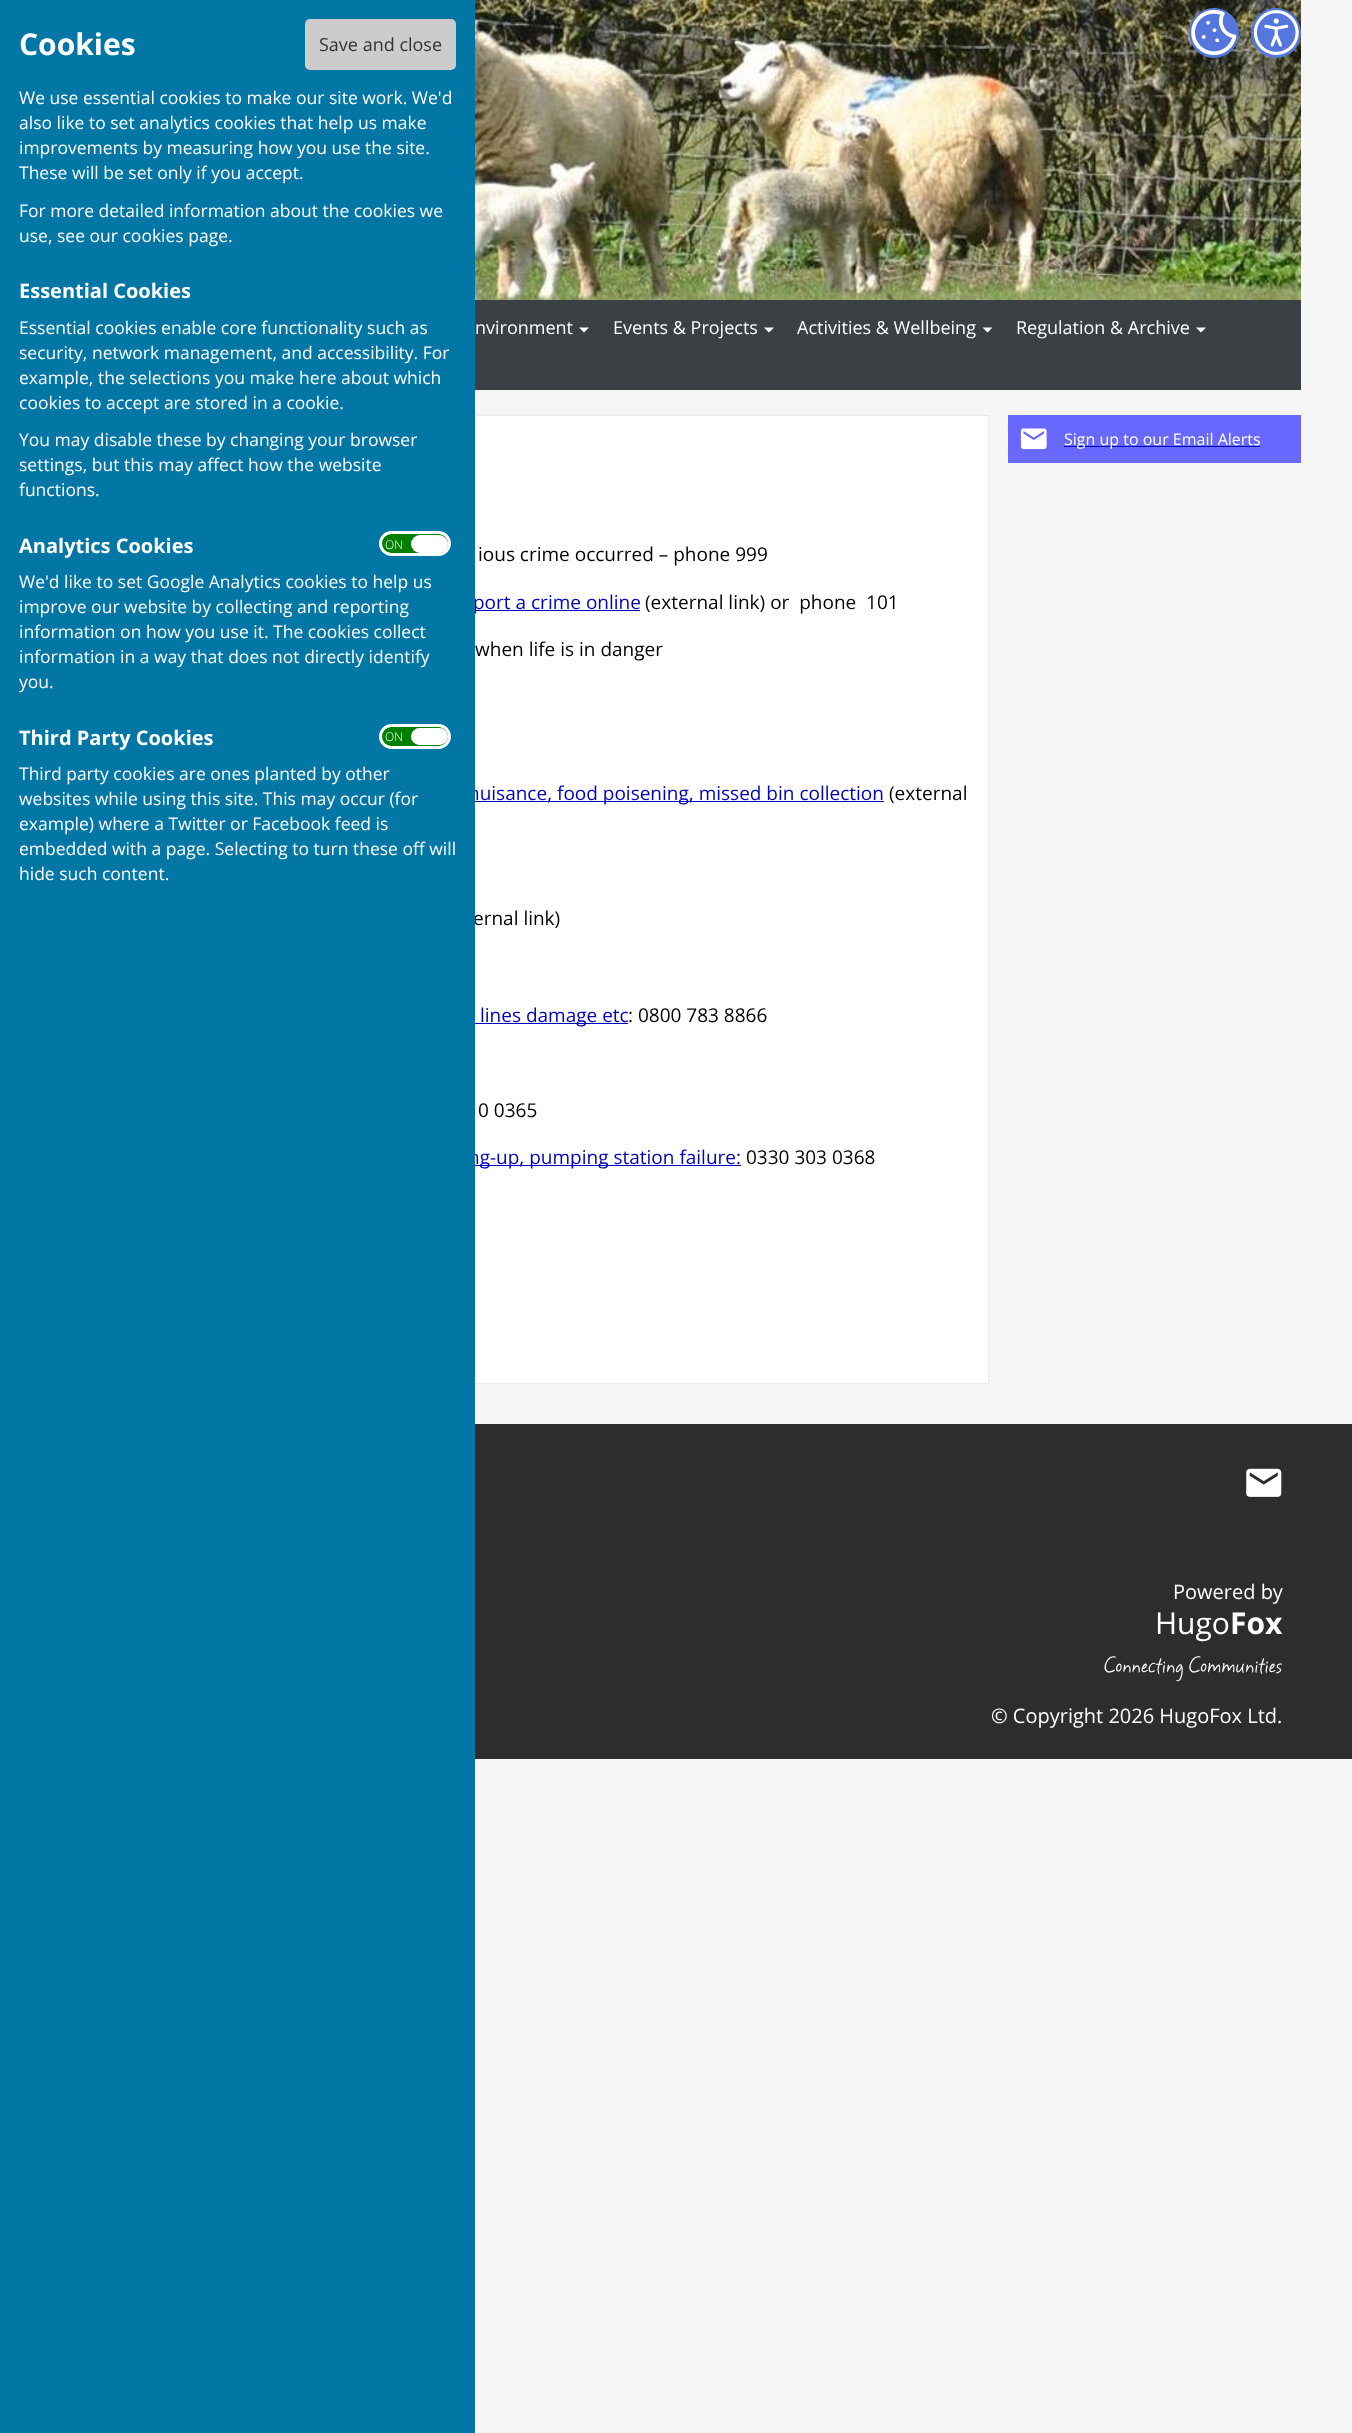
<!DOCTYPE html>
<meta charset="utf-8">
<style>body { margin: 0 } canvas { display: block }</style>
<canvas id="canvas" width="1352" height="2433"></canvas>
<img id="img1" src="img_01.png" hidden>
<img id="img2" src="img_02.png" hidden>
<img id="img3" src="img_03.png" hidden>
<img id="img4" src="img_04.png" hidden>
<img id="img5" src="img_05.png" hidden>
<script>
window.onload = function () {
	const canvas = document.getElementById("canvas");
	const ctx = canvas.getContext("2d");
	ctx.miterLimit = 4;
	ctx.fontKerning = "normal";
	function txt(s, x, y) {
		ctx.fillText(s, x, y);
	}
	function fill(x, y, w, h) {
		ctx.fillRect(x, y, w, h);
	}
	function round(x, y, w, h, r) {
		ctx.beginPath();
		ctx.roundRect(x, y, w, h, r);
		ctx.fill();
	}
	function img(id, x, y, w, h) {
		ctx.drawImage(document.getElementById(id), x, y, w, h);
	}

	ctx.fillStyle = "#F6F6F6";
	fill(0, 0, 1352, 2433);
	img("img1", 475, 0, 826, 300);
	ctx.fillStyle = "#5577DD";
	ctx.beginPath();
	ctx.arc(1214, 33, 25, 0, Math.PI * 2);
	ctx.fill();
	img("img2", 1191, 9, 46, 47);
	ctx.beginPath();
	ctx.arc(1276, 33, 25, 0, Math.PI * 2);
	ctx.fill();
	img("img3", 1253, 10, 46, 45);
	ctx.fillStyle = "#3B4044";
	fill(475, 300, 826, 90);
	ctx.fillStyle = "#FFFFFF";
	ctx.beginPath();
	ctx.moveTo(579, 327.5);
	ctx.lineTo(589, 327.5);
	ctx.lineTo(584, 332.5);
	ctx.closePath();
	ctx.fill();
	ctx.beginPath();
	ctx.moveTo(764, 327.5);
	ctx.lineTo(774, 327.5);
	ctx.lineTo(769, 332.5);
	ctx.closePath();
	ctx.fill();
	ctx.beginPath();
	ctx.moveTo(982.5, 327.5);
	ctx.lineTo(992.5, 327.5);
	ctx.lineTo(987.5, 332.5);
	ctx.closePath();
	ctx.fill();
	ctx.beginPath();
	ctx.moveTo(1196, 327.5);
	ctx.lineTo(1206, 327.5);
	ctx.lineTo(1201, 332.5);
	ctx.closePath();
	ctx.fill();
	ctx.fillStyle = "#6868FF";
	fill(1008, 415, 293, 48);
	img("img4", 1020, 428, 27, 22);
	ctx.fillStyle = "#0000BF";
	fill(1064, 446, 196, 1);
	ctx.fillStyle = "#FFFFFF";
	fill(475, 416, 513, 967);
	ctx.strokeStyle = "#EAEAEA";
	ctx.strokeRect(51.5, 415.5, 937, 968);
	ctx.fillStyle = "#0000BF";
	fill(475, 610, 165, 1);
	fill(475, 801, 409, 1);
	fill(475, 1023, 153, 1);
	fill(475, 1165, 266, 1);
	ctx.fillStyle = "#2D2D2D";
	fill(475, 1424, 877, 335);
	img("img5", 1246, 1468, 36, 29);
	ctx.font = "18px Open Sans";
	ctx.fillStyle = "#FFFFFF";
	txt("nvironment", 475, 334);
	txt("Events & Projects", 613, 334);
	txt("Activities & Wellbeing", 797, 334);
	txt("Regulation & Archive", 1016, 334);
	ctx.font = "16px Open Sans";
	txt("Sign up to our Email Alerts", 1064, 445);
	ctx.font = "19px Open Sans";
	ctx.fillStyle = "#000000";
	txt("ious crime occurred – phone 999", 478, 561);
	ctx.fillStyle = "#0000BF";
	txt("port a crime online", 473, 609);
	ctx.fillStyle = "#000000";
	txt("(external link) or  phone  101", 645, 609);
	txt("when life is in danger", 475, 656);
	ctx.fillStyle = "#0000BF";
	txt("nuisance, food poisening, missed bin collection", 468, 800);
	ctx.fillStyle = "#000000";
	txt("(external", 889, 800);
	txt("ernal link)", 473, 925);
	ctx.fillStyle = "#0000BF";
	txt("lines damage etc", 480, 1022);
	ctx.fillStyle = "#000000";
	txt(": 0800 783 8866", 628, 1022);
	txt("0 0365", 478, 1117);
	ctx.fillStyle = "#0000BF";
	txt("ng-up, pumping station failure:", 468, 1164);
	ctx.fillStyle = "#0276A5";
	fill(0, 0, 475, 2433);
	ctx.fillStyle = "#008000";
	ctx.beginPath();
	ctx.roundRect(380.5, 725.5, 69, 22, 11);
	ctx.fill();
	ctx.strokeStyle = "#FFFFFF";
	ctx.lineWidth = 3;
	ctx.stroke();
	ctx.fillStyle = "#FFFFFF";
	round(411, 728, 37, 17, 8.5);
	ctx.font = "300 12px Open Sans";
	txt("ON", 385, 741);
	ctx.fillStyle = "#008000";
	ctx.beginPath();
	ctx.roundRect(380.5, 532.5, 69, 22, 11);
	ctx.fill();
	ctx.stroke();
	ctx.fillStyle = "#FFFFFF";
	round(411, 535, 37, 18, 9);
	txt("ON", 385, 549);
	ctx.fillStyle = "#CCCCCC";
	round(305, 19, 151, 51, 5);
	ctx.font = "18px Open Sans";
	ctx.fillStyle = "#333333";
	txt("Save and close", 319, 51);
	ctx.font = "17.5px Open Sans";
	ctx.fillStyle = "#FFFFFF";
	txt("hide such content.", 19, 880);
	txt("embedded with a page. Selecting to turn these off will", 19, 855);
	txt("example) where a Twitter or Facebook feed is", 19, 830);
	txt("websites while using this site. This may occur (for", 19, 805);
	txt("Third party cookies are ones planted by other", 19, 780);
	ctx.font = "bold 20px Open Sans";
	txt("Third Party Cookies", 19, 745);
	ctx.font = "17.5px Open Sans";
	txt("you.", 19, 688);
	txt("information in a way that does not directly identify", 19, 663);
	txt("information on how you use it. The cookies collect", 19, 638);
	txt("improve our website by collecting and reporting", 19, 613);
	txt("We'd like to set Google Analytics cookies to help us", 19, 588);
	ctx.font = "bold 20px Open Sans";
	txt("Analytics Cookies", 19, 553);
	ctx.font = "17.5px Open Sans";
	txt("functions.", 19, 496);
	txt("settings, but this may affect how the website", 19, 471);
	txt("You may disable these by changing your browser", 19, 446);
	txt("cookies to accept are stored in a cookie.", 19, 409);
	txt("example, the selections you make here about which", 19, 384);
	txt("security, network management, and accessibility. For", 19, 359);
	txt("Essential cookies enable core functionality such as", 19, 334);
	ctx.font = "bold 20px Open Sans";
	txt("Essential Cookies", 19, 298);
	ctx.font = "17.5px Open Sans";
	txt("use, see our cookies page.", 19, 242);
	txt("For more detailed information about the cookies we", 19, 217);
	txt("These will be set only if you accept.", 19, 179);
	txt("improvements by measuring how you use the site.", 19, 154);
	txt("also like to set analytics cookies that help us make", 19, 129);
	txt("We use essential cookies to make our site work. We'd", 19, 104);
	ctx.font = "bold 30px Open Sans";
	txt("Cookies", 19, 55);
	ctx.font = "19px Open Sans";
	ctx.fillStyle = "#000000";
	txt("0330 303 0368", 746, 1164);
	ctx.font = "20px Open Sans";
	ctx.fillStyle = "#FFFFFF";
	txt("Powered by", 1173, 1599);
	ctx.font = "30px Open Sans";
	txt("Hugo", 1155, 1634);
	ctx.font = "bold 30px Open Sans";
	txt("Fox", 1230, 1634);
	ctx.font = "20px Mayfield";
	txt("Connecting Communities", 1104, 1672);
	ctx.font = "20px Open Sans";
	txt("© Copyright 2026 HugoFox Ltd.", 991, 1723);
};
</script>
